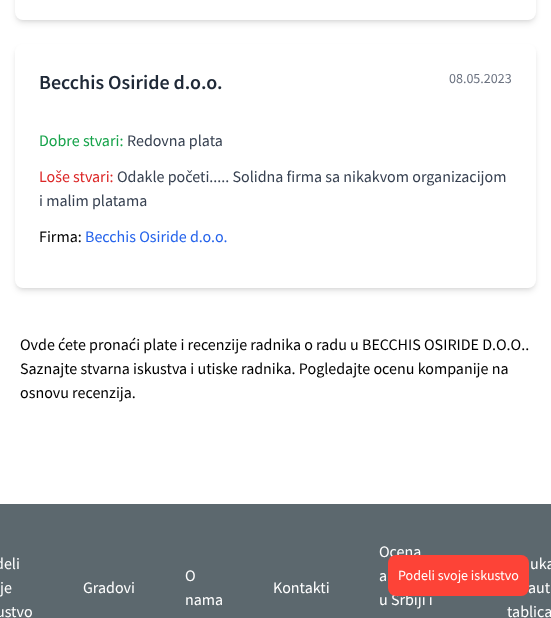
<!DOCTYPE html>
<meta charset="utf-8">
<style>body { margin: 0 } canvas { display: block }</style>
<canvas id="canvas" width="551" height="618"></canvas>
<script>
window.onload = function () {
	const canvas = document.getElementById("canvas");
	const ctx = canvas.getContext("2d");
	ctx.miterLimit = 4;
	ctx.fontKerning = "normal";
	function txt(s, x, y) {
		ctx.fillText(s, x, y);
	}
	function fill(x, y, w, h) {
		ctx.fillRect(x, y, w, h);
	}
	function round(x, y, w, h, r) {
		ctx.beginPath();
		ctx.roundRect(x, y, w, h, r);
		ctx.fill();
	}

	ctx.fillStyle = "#FFFFFF";
	fill(0, 0, 551, 618);
	ctx.fillStyle = "rgba(0, 0, 0, 0.1)";
	ctx.filter = "blur(2px)";
	ctx.beginPath();
	ctx.roundRect(17, -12, 517, 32, 6);
	ctx.fill();
	ctx.filter = "none";
	ctx.filter = "blur(3px)";
	ctx.beginPath();
	ctx.roundRect(16, -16, 519, 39, 7);
	ctx.fill();
	ctx.filter = "none";
	ctx.fillStyle = "#FFFFFF";
	round(15, -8, 521, 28, 8);
	ctx.fillStyle = "rgba(0, 0, 0, 0.1)";
	ctx.filter = "blur(2px)";
	ctx.beginPath();
	ctx.roundRect(17, 48, 517, 240, 6);
	ctx.fill();
	ctx.filter = "none";
	ctx.filter = "blur(3px)";
	ctx.beginPath();
	ctx.roundRect(16, 49, 519, 242, 7);
	ctx.fill();
	ctx.filter = "none";
	ctx.fillStyle = "#FFFFFF";
	round(15, 44, 521, 244, 8);
	ctx.fillStyle = "#5C686E";
	fill(0, 504, 551, 114);
	ctx.font = "600 20px Source Sans Pro";
	ctx.fillStyle = "#1F2937";
	txt("Becchis Osiride d.o.o.", 39, 89);
	ctx.font = "14px Source Sans Pro";
	ctx.fillStyle = "#6B7280";
	txt("08.05.2023", 449, 83);
	ctx.font = "16px Source Sans Pro";
	ctx.fillStyle = "#16A34A";
	txt("Dobre stvari:", 39, 146);
	ctx.fillStyle = "#374151";
	txt("Redovna plata", 127, 146);
	ctx.fillStyle = "#DC2626";
	txt("Loše stvari:", 39, 182);
	ctx.fillStyle = "#374151";
	txt("Odakle početi..... Solidna firma sa nikakvom organizacijom", 117, 182);
	txt("i malim platama", 39, 206);
	ctx.fillStyle = "#000000";
	txt("Firma:", 39, 242);
	ctx.fillStyle = "#2563EB";
	txt("Becchis Osiride d.o.o.", 85, 242);
	ctx.fillStyle = "#000000";
	txt("Ovde ćete pronaći plate i recenzije radnika o radu u BECCHIS OSIRIDE D.O.O..", 20, 350);
	txt("Saznajte stvarna iskustva i utiske radnika. Pogledajte ocenu kompanije na", 20, 374);
	txt("osnovu recenzija.", 20, 398);
	ctx.fillStyle = "#FFFFFF";
	txt("deli", -5, 569);
	txt("je", 0, 593);
	txt("ustvo", -4, 617);
	txt("Gradovi", 83, 593);
	txt("O", 185, 581);
	txt("nama", 185, 605);
	txt("Kontakti", 273, 593);
	txt("Ocena", 379, 557);
	txt("a", 379, 581);
	txt("u Srbiji i", 379, 605);
	txt("uka", 530, 569);
	txt("aut", 528, 593);
	txt("tablica", 507, 617);
	ctx.fillStyle = "#FD4337";
	round(388, 555, 141, 41, 8);
	ctx.font = "14px Source Sans Pro";
	ctx.fillStyle = "#FFFFFF";
	txt("Podeli svoje iskustvo", 398, 580);
};
</script>
